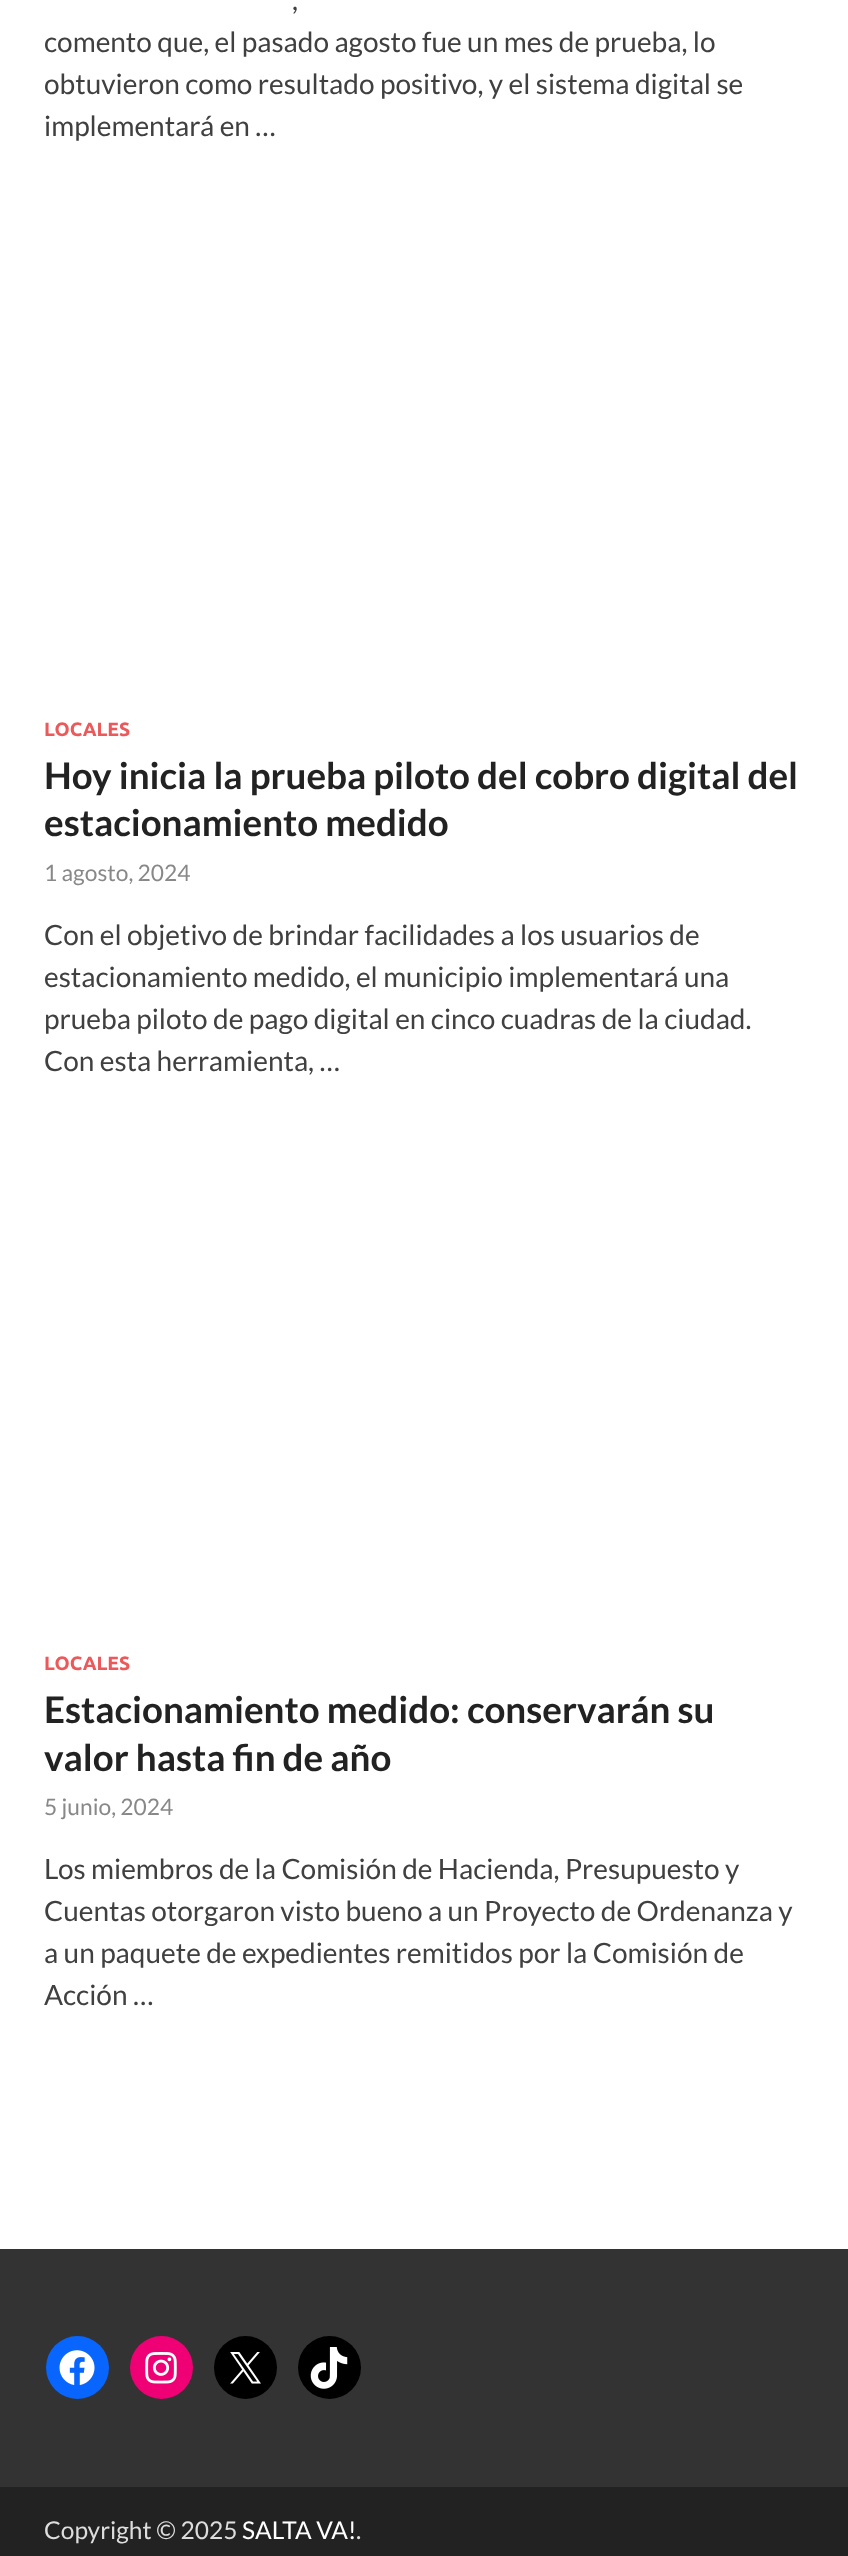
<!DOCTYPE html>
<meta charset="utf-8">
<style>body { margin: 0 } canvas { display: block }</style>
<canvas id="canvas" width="848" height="2556"></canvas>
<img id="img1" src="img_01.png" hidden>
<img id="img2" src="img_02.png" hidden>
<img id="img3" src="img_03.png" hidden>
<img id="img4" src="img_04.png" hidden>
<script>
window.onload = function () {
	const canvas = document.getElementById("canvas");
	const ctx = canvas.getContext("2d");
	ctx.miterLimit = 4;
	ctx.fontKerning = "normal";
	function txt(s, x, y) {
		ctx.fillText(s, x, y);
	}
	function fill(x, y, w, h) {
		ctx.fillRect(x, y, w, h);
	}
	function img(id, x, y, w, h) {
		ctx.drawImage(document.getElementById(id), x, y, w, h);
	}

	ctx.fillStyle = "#FFFFFF";
	fill(0, 0, 848, 2556);
	ctx.fillStyle = "#333333";
	fill(0, 2249, 848, 238);
	ctx.fillStyle = "#0866FF";
	ctx.beginPath();
	ctx.arc(77.5, 2367.5, 31.5, 0, Math.PI * 2);
	ctx.fill();
	img("img1", 59, 2350, 36, 35);
	ctx.fillStyle = "#F00075";
	ctx.beginPath();
	ctx.arc(161.5, 2367.5, 31.5, 0, Math.PI * 2);
	ctx.fill();
	img("img2", 145, 2352, 32, 32);
	ctx.fillStyle = "#000000";
	ctx.beginPath();
	ctx.arc(245.5, 2367.5, 31.5, 0, Math.PI * 2);
	ctx.fill();
	img("img3", 230, 2352, 31, 32);
	ctx.beginPath();
	ctx.arc(329.5, 2367.5, 31.5, 0, Math.PI * 2);
	ctx.fill();
	img("img4", 310, 2347, 38, 42);
	ctx.fillStyle = "#222222";
	fill(0, 2487, 848, 69);
	ctx.font = "28px Lato";
	ctx.fillStyle = "#404040";
	txt(",", 292, 10);
	txt("comento que, el pasado agosto fue un mes de prueba, lo", 44, 52);
	txt("obtuvieron como resultado positivo, y el sistema digital se", 44, 94);
	txt("implementará en …", 44, 136);
	ctx.font = "bold 19.25px Ubuntu";
	ctx.fillStyle = "#EB595A";
	txt("LOCALES", 44, 736);
	ctx.font = "bold 36.75px Lato";
	ctx.fillStyle = "#222222";
	txt("Hoy inicia la prueba piloto del cobro digital del", 44, 789);
	txt("estacionamiento medido", 44, 836);
	ctx.font = "22.75px Lato";
	ctx.fillStyle = "#888888";
	txt("1 agosto, 2024", 44, 881);
	ctx.font = "28px Lato";
	ctx.fillStyle = "#404040";
	txt("Con el objetivo de brindar facilidades a los usuarios de", 44, 945);
	txt("estacionamiento medido, el municipio implementará una", 44, 987);
	txt("prueba piloto de pago digital en cinco cuadras de la ciudad.", 44, 1029);
	txt("Con esta herramienta, …", 44, 1071);
	ctx.font = "bold 19.25px Ubuntu";
	ctx.fillStyle = "#EB595A";
	txt("LOCALES", 44, 1670);
	ctx.font = "bold 36.75px Lato";
	ctx.fillStyle = "#222222";
	txt("Estacionamiento medido: conservarán su", 44, 1723);
	txt("valor hasta fin de año", 44, 1771);
	ctx.font = "22.75px Lato";
	ctx.fillStyle = "#888888";
	txt("5 junio, 2024", 44, 1815);
	ctx.font = "28px Lato";
	ctx.fillStyle = "#404040";
	txt("Los miembros de la Comisión de Hacienda, Presupuesto y", 44, 1879);
	txt("Cuentas otorgaron visto bueno a un Proyecto de Ordenanza y", 44, 1921);
	txt("a un paquete de expedientes remitidos por la Comisión de", 44, 1963);
	txt("Acción …", 44, 2005);
	ctx.font = "24.5px Lato";
	ctx.fillStyle = "#DDDDDD";
	txt("Copyright © 2025", 44, 2539);
	ctx.fillStyle = "#FFFFFF";
	txt("SALTA VA!", 242, 2539);
	ctx.fillStyle = "#DDDDDD";
	txt(".", 356, 2539);
};
</script>
